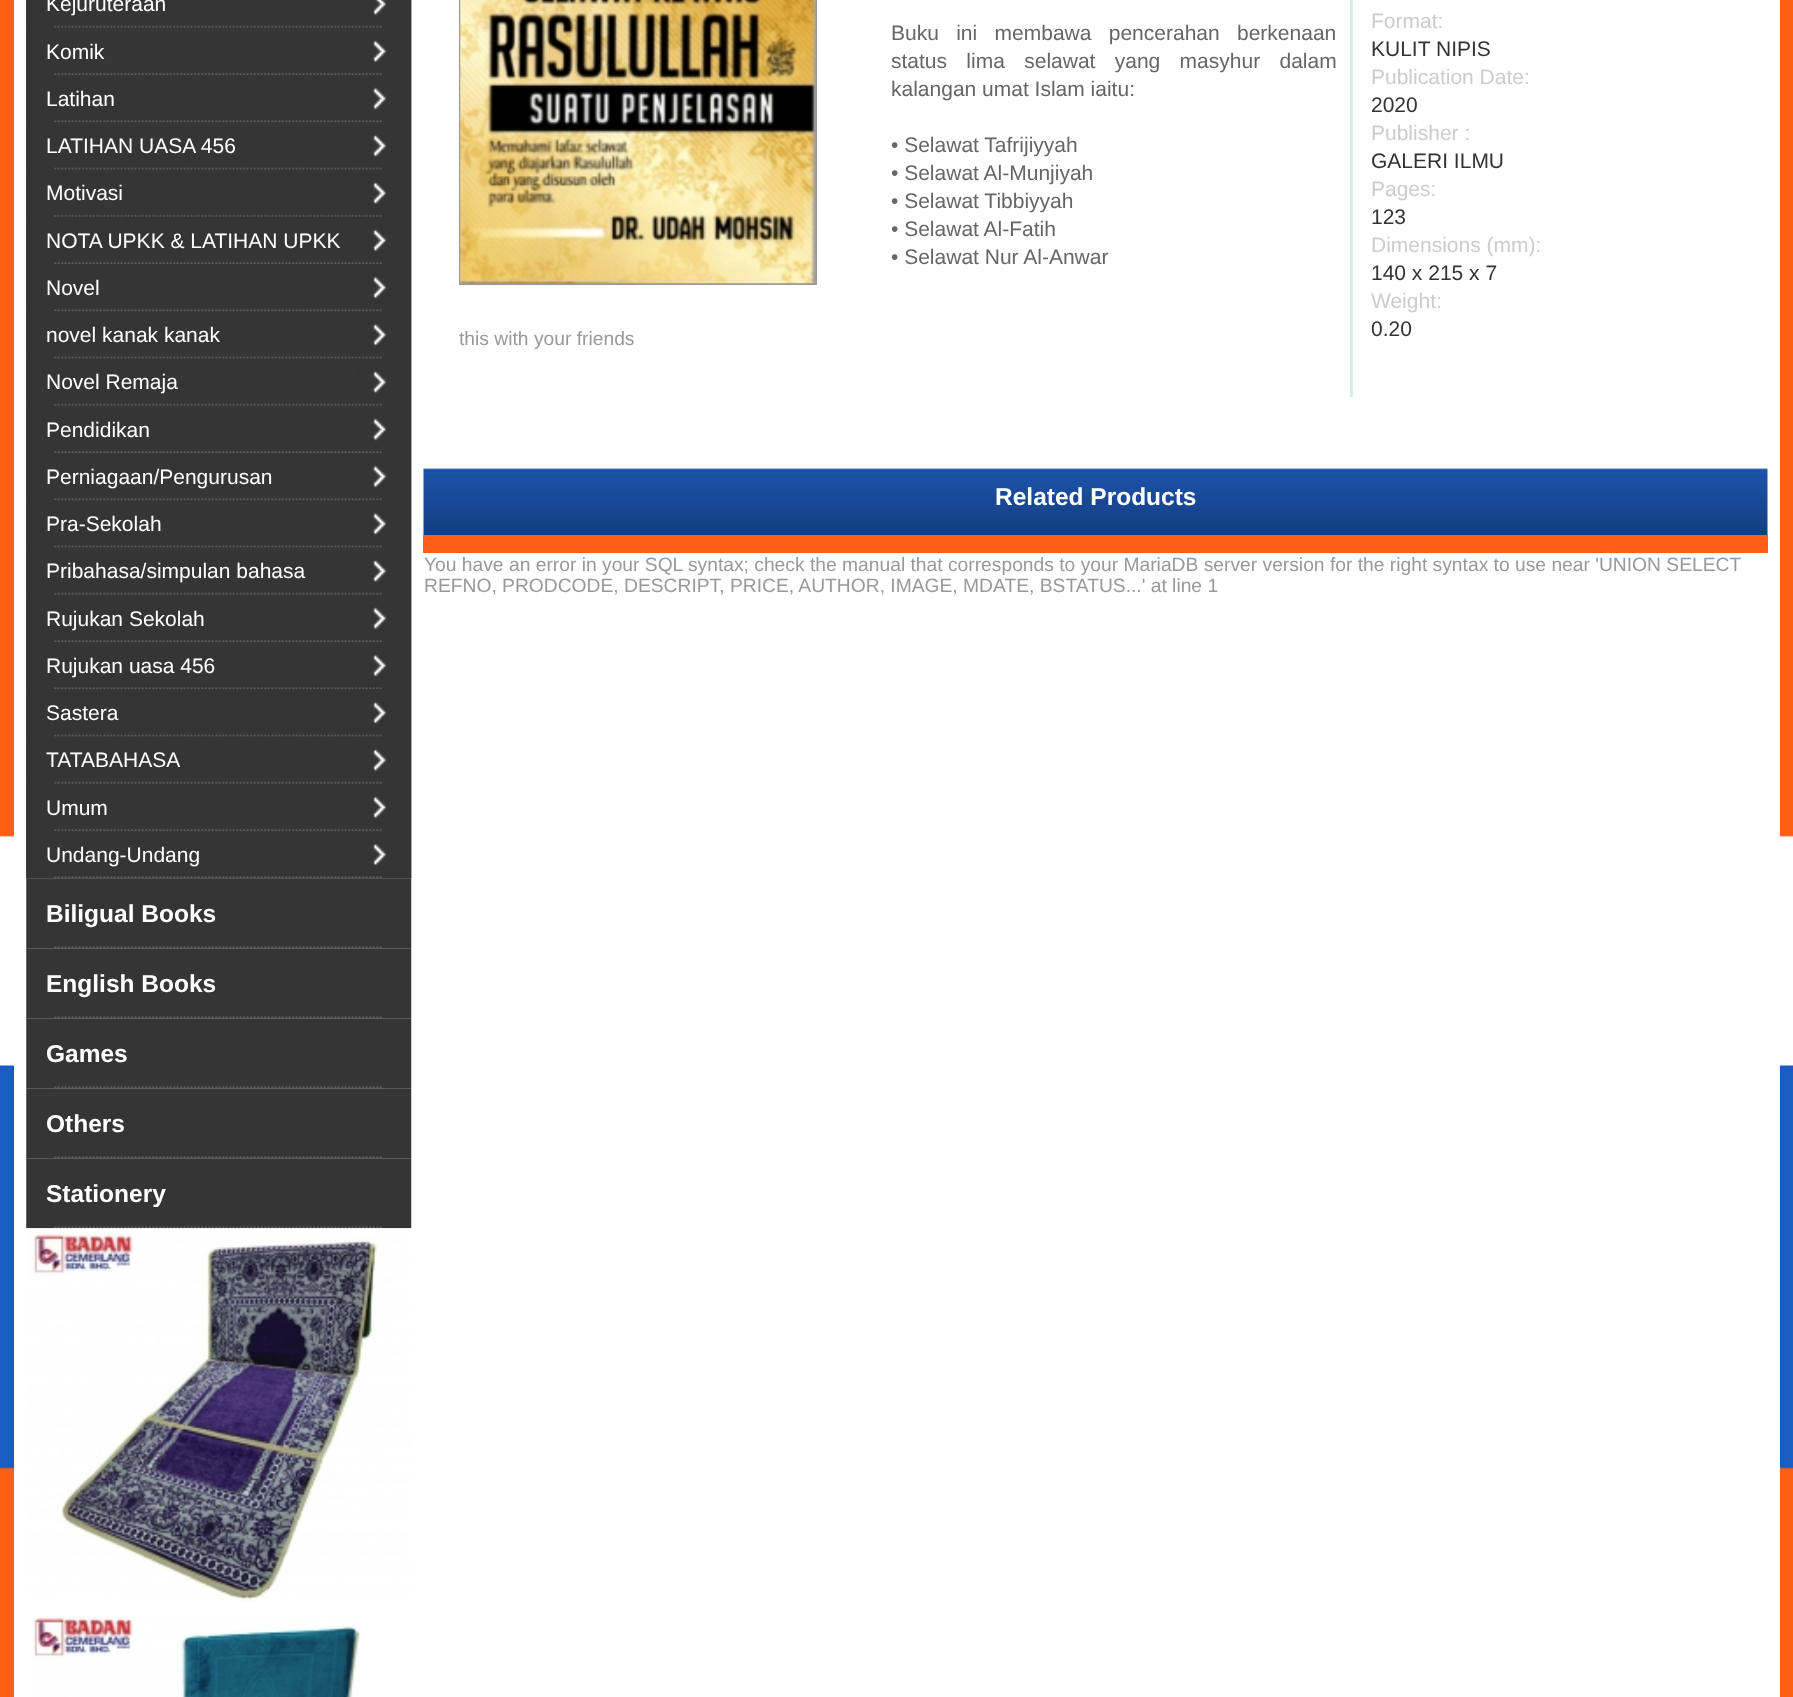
<!DOCTYPE html>
<meta charset="utf-8">
<style>body { margin: 0 } canvas { display: block }</style>
<canvas id="canvas" width="1793" height="1697"></canvas>
<img id="img1" src="img_01.png" hidden>
<img id="img2" src="img_02.png" hidden>
<img id="img3" src="img_03.png" hidden>
<img id="img4" src="img_04.png" hidden>
<img id="img5" src="img_05.png" hidden>
<img id="img6" src="img_06.png" hidden>
<img id="img7" src="img_07.png" hidden>
<img id="img8" src="img_08.png" hidden>
<img id="img9" src="img_09.png" hidden>
<img id="img10" src="img_10.png" hidden>
<img id="img11" src="img_11.png" hidden>
<img id="img12" src="img_12.png" hidden>
<img id="img13" src="img_13.png" hidden>
<img id="img14" src="img_14.png" hidden>
<img id="img15" src="img_15.png" hidden>
<img id="img16" src="img_16.png" hidden>
<img id="img17" src="img_17.png" hidden>
<img id="img18" src="img_18.png" hidden>
<img id="img19" src="img_19.png" hidden>
<img id="img20" src="img_20.png" hidden>
<script>
window.onload = function () {
	const canvas = document.getElementById("canvas");
	const ctx = canvas.getContext("2d");
	ctx.miterLimit = 4;
	ctx.fontKerning = "normal";
	function txt(s, x, y) {
		ctx.fillText(s, x, y);
	}
	function fill(x, y, w, h) {
		ctx.fillRect(x, y, w, h);
	}
	function img(id, x, y, w, h) {
		ctx.drawImage(document.getElementById(id), x, y, w, h);
	}

	ctx.fillStyle = "#FFFFFF";
	fill(0, 0, 1793, 1697);
	img("img1", 0, 0, 1793, 1697);
	fill(14, 0, 1766, 1697);
	img("img2", 26, 0, 386, 879);
	img("img3", 26, 0, 386, 28);
	img("img4", 372, 0, 15, 16);
	img("img5", 26, 27, 386, 48);
	img("img6", 372, 39, 15, 24);
	img("img7", 26, 75, 386, 48);
	img("img8", 372, 87, 15, 24);
	img("img9", 26, 122, 386, 48);
	img("img10", 372, 134, 15, 24);
	img("img11", 26, 169, 386, 48);
	img("img12", 372, 181, 15, 24);
	img("img5", 26, 216, 386, 48);
	img("img6", 372, 228, 15, 24);
	img("img7", 26, 264, 386, 48);
	img("img8", 372, 276, 15, 24);
	img("img9", 26, 311, 386, 48);
	img("img10", 372, 323, 15, 24);
	img("img11", 26, 358, 386, 48);
	img("img12", 372, 370, 15, 24);
	img("img5", 26, 405, 386, 48);
	img("img6", 372, 417, 15, 24);
	img("img7", 26, 453, 386, 48);
	img("img8", 372, 465, 15, 24);
	img("img9", 26, 500, 386, 48);
	img("img10", 372, 512, 15, 24);
	img("img11", 26, 547, 386, 48);
	img("img12", 372, 559, 15, 24);
	img("img5", 26, 594, 386, 48);
	img("img6", 372, 606, 15, 24);
	img("img7", 26, 642, 386, 48);
	img("img8", 372, 654, 15, 24);
	img("img9", 26, 689, 386, 48);
	img("img10", 372, 701, 15, 24);
	img("img11", 26, 736, 386, 48);
	img("img12", 372, 748, 15, 24);
	img("img5", 26, 783, 386, 48);
	img("img6", 372, 795, 15, 24);
	img("img13", 26, 831, 386, 48);
	img("img8", 372, 843, 15, 24);
	img("img14", 26, 878, 386, 71);
	img("img15", 26, 948, 386, 71);
	img("img15", 26, 1018, 386, 71);
	img("img15", 26, 1088, 386, 71);
	img("img16", 26, 1158, 386, 71);
	img("img17", 26, 1228, 385, 374);
	img("img18", 32, 1616, 329, 81);
	ctx.fillStyle = "#D4EEEC";
	fill(1350, 0, 3, 397);
	ctx.strokeStyle = "#999999";
	ctx.lineWidth = 2;
	ctx.strokeRect(460, -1, 356, 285);
	img("img19", 460, 0, 356, 284);
	img("img20", 423, 468, 1345, 67);
	ctx.fillStyle = "#FF5E16";
	fill(423, 535, 1345, 18);
	ctx.font = "21px Liberation Sans";
	ctx.fillStyle = "#FFFFFF";
	txt("Kejuruteraan", 46, 11);
	txt("Komik", 46, 59);
	txt("Latihan", 46, 106);
	txt("LATIHAN UASA 456", 46, 153);
	txt("Motivasi", 46, 200);
	txt("NOTA UPKK & LATIHAN UPKK", 46, 248);
	txt("Novel", 46, 295);
	txt("novel kanak kanak", 46, 342);
	txt("Novel Remaja", 46, 389);
	txt("Pendidikan", 46, 437);
	txt("Perniagaan/Pengurusan", 46, 484);
	txt("Pra-Sekolah", 46, 531);
	txt("Pribahasa/simpulan bahasa", 46, 578);
	txt("Rujukan Sekolah", 46, 626);
	txt("Rujukan uasa 456", 46, 673);
	txt("Sastera", 46, 720);
	txt("TATABAHASA", 46, 767);
	txt("Umum", 46, 815);
	txt("Undang-Undang", 46, 862);
	ctx.font = "bold 24.5px Liberation Sans";
	txt("Biligual Books", 46, 922);
	txt("English Books", 46, 992);
	txt("Games", 46, 1062);
	txt("Others", 46, 1132);
	txt("Stationery", 46, 1202);
	ctx.wordSpacing = "11.5px";
	ctx.font = "21px Liberation Sans";
	ctx.fillStyle = "#666666";
	txt("Buku ini membawa pencerahan berkenaan", 891, 40);
	ctx.wordSpacing = "13.5px";
	txt("status lima selawat yang masyhur dalam", 891, 68);
	ctx.wordSpacing = "0px";
	txt("kalangan umat Islam iaitu:", 891, 96);
	txt("• Selawat Tafrijiyyah", 891, 152);
	txt("• Selawat Al-Munjiyah", 891, 180);
	txt("• Selawat Tibbiyyah", 891, 208);
	txt("• Selawat Al-Fatih", 891, 236);
	txt("• Selawat Nur Al-Anwar", 891, 264);
	ctx.fillStyle = "#CCCCCC";
	txt("Format:", 1371, 28);
	ctx.fillStyle = "#333333";
	txt("KULIT NIPIS", 1371, 56);
	ctx.fillStyle = "#CCCCCC";
	txt("Publication Date:", 1371, 84);
	ctx.fillStyle = "#333333";
	txt("2020", 1371, 112);
	ctx.fillStyle = "#CCCCCC";
	txt("Publisher :", 1371, 140);
	ctx.fillStyle = "#333333";
	txt("GALERI ILMU", 1371, 168);
	ctx.fillStyle = "#CCCCCC";
	txt("Pages:", 1371, 196);
	ctx.fillStyle = "#333333";
	txt("123", 1371, 224);
	ctx.fillStyle = "#CCCCCC";
	txt("Dimensions (mm):", 1371, 252);
	ctx.fillStyle = "#333333";
	txt("140 x 215 x 7", 1371, 280);
	ctx.fillStyle = "#CCCCCC";
	txt("Weight:", 1371, 308);
	ctx.fillStyle = "#333333";
	txt("0.20", 1371, 336);
	ctx.font = "19.25px Liberation Sans";
	ctx.fillStyle = "#999999";
	txt("this with your friends", 459, 345);
	ctx.font = "bold 24.5px Liberation Sans";
	ctx.fillStyle = "#FFFFFF";
	txt("Related Products", 995, 505);
	ctx.font = "19.25px Liberation Sans";
	ctx.fillStyle = "#999999";
	txt("You have an error in your SQL syntax; check the manual that corresponds to your MariaDB server version for the right syntax to use near 'UNION SELECT", 424, 571);
	txt("REFNO, PRODCODE, DESCRIPT, PRICE, AUTHOR, IMAGE, MDATE, BSTATUS...' at line 1", 424, 592);
};
</script>
